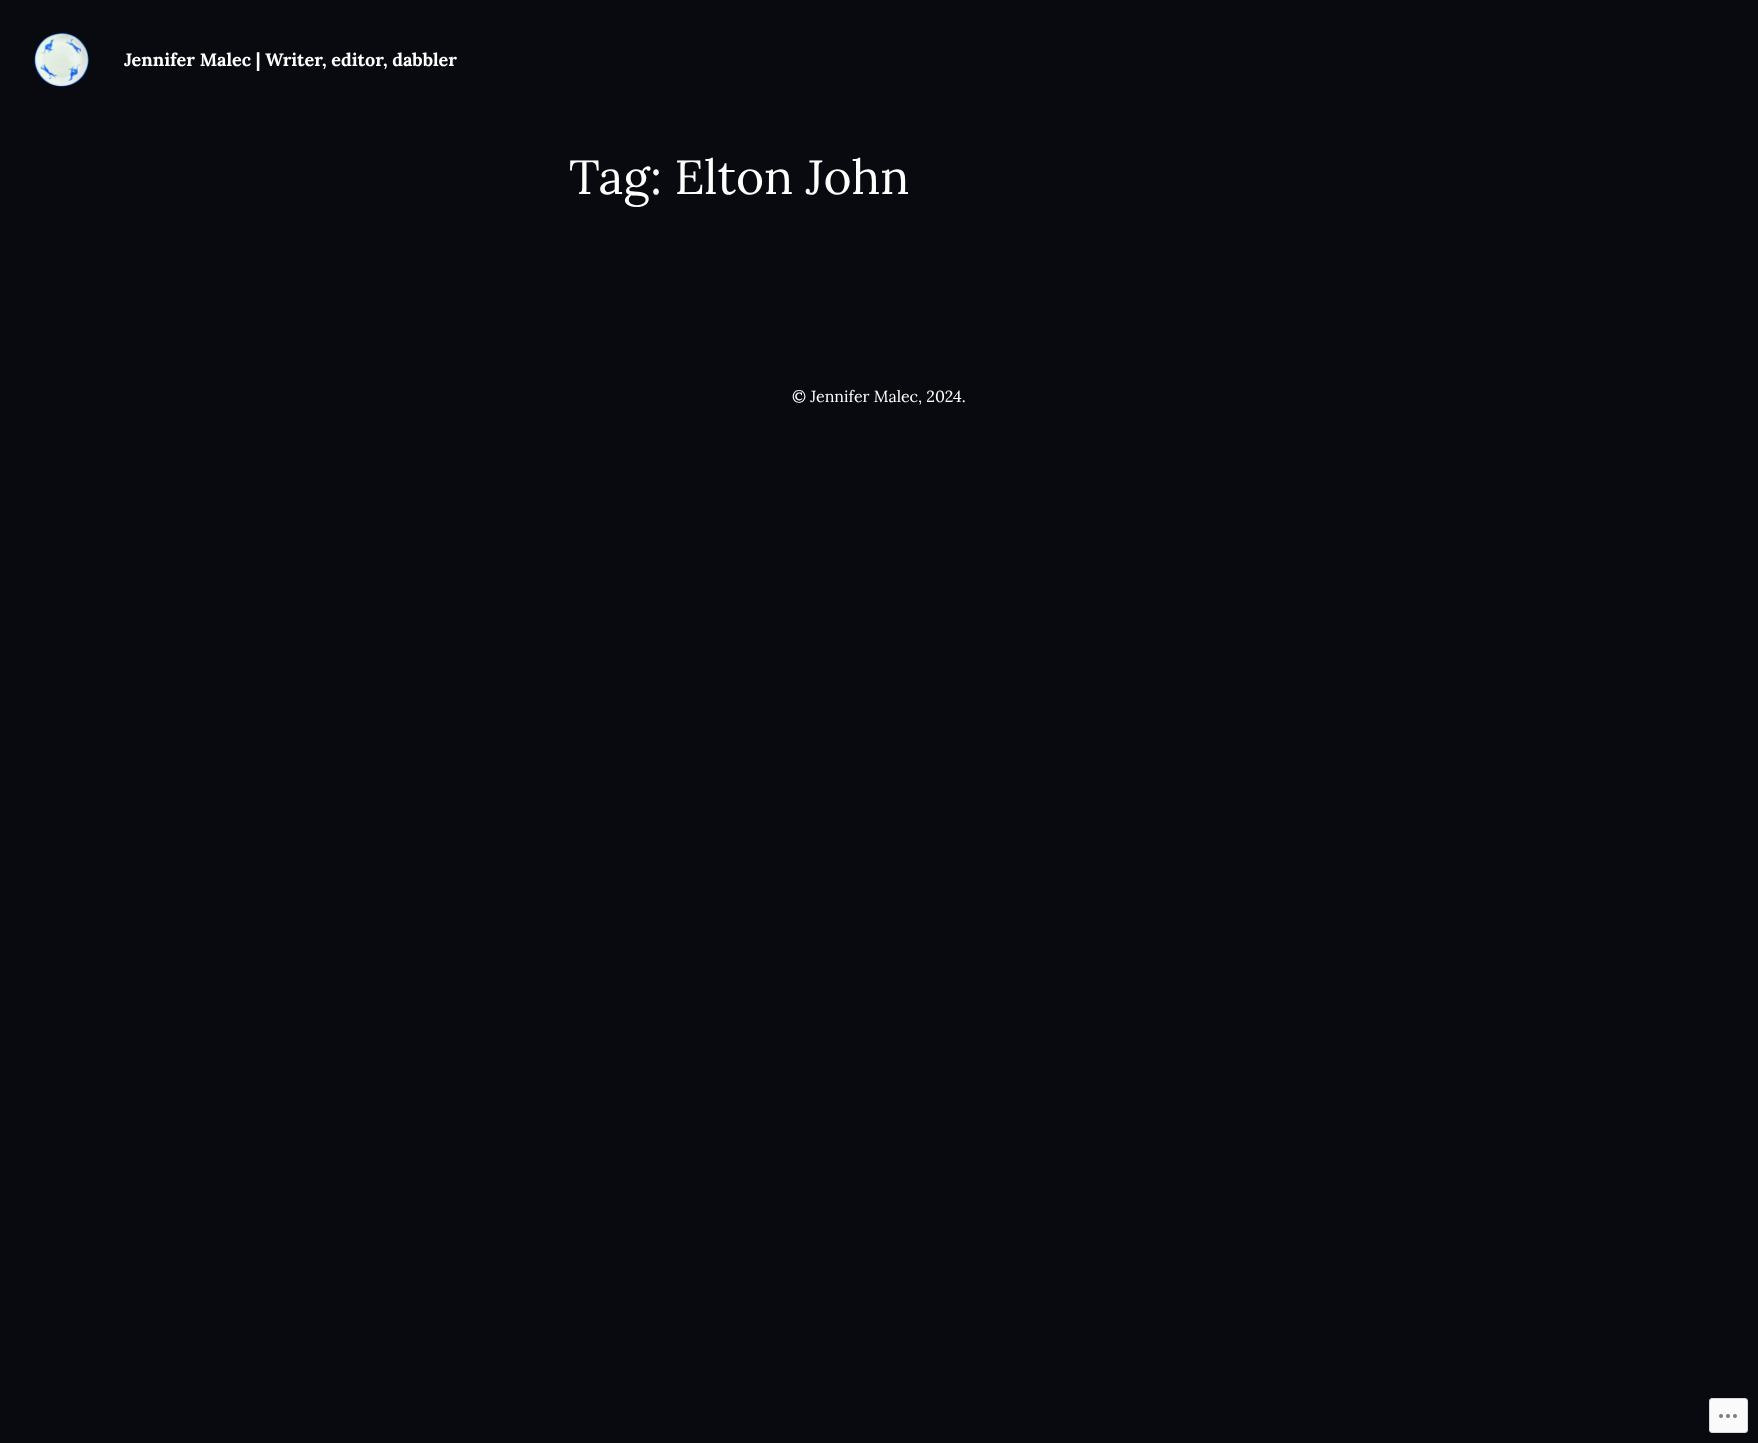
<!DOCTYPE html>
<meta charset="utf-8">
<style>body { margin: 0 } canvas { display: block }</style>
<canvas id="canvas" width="1758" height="1443"></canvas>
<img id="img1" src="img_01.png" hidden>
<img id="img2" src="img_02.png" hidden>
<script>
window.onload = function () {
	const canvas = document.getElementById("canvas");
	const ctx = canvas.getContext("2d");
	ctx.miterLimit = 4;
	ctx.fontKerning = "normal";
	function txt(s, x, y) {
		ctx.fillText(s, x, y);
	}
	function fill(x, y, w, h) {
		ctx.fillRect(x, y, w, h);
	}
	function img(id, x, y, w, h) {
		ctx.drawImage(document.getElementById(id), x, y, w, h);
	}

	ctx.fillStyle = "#090A0F";
	fill(0, 0, 1758, 1443);
	img("img1", 34, 33, 55, 54);
	ctx.fillStyle = "#FAFAFA";
	ctx.beginPath();
	ctx.roundRect(1709.5, 1398.5, 38, 34, 2.5);
	ctx.fill();
	ctx.strokeStyle = "#D8D8DA";
	ctx.stroke();
	img("img2", 1719, 1414, 18, 4);
	ctx.font = "bold 18px Lora";
	ctx.fillStyle = "#FFFFFF";
	txt("Jennifer Malec | Writer, editor, dabbler", 124, 66);
	ctx.font = "48px Lora";
	txt("Tag: Elton John", 569, 194);
	ctx.font = "16px Lora";
	txt("© Jennifer Malec, 2024.", 792, 402);
};
</script>
